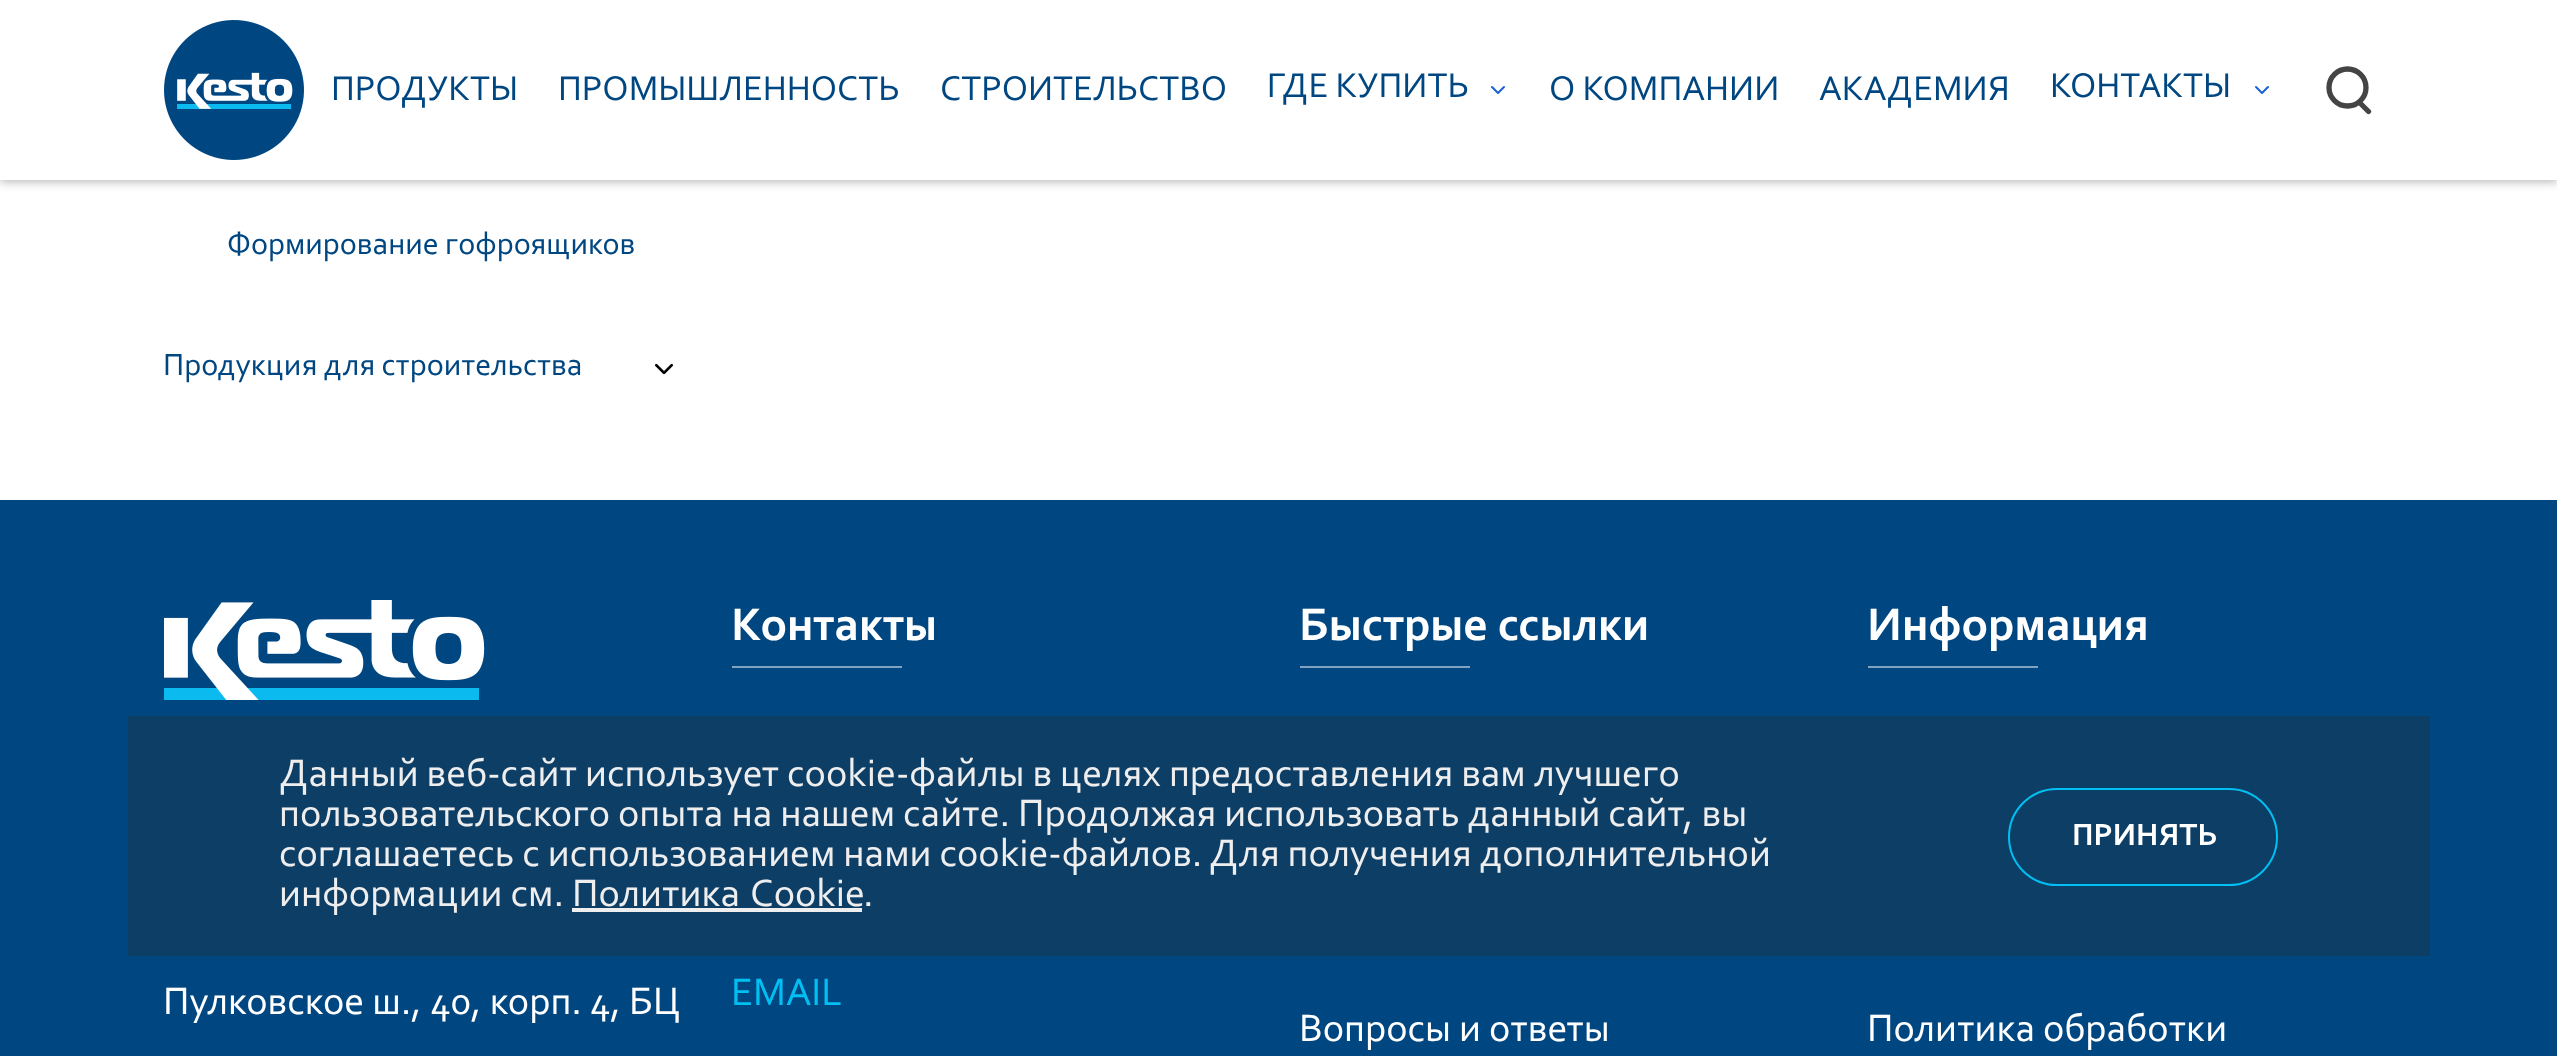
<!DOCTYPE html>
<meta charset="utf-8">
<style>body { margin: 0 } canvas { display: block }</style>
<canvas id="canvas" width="2557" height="1056"></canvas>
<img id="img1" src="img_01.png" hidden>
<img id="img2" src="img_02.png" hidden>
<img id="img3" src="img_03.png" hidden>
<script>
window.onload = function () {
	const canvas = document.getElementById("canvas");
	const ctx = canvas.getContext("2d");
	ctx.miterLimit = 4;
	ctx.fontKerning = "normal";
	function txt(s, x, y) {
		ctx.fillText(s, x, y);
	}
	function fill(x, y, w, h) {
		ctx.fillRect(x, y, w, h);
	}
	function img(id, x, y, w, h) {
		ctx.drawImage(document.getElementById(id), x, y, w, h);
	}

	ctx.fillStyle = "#FFFFFF";
	fill(0, 0, 2557, 1056);
	ctx.fillStyle = "rgba(0, 0, 0, 0.28)";
	ctx.filter = "blur(5px)";
	ctx.beginPath();
	ctx.rect(0, 2, 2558, 180);
	ctx.fill();
	ctx.filter = "none";
	ctx.fillStyle = "#FFFFFF";
	fill(0, 0, 2557, 180);
	img("img1", 164, 20, 140, 140);
	ctx.beginPath();
	ctx.moveTo(1492, 87);
	ctx.lineTo(1498, 93);
	ctx.lineTo(1504, 87);
	ctx.strokeStyle = "#1A62D3";
	ctx.lineWidth = 2;
	ctx.lineCap = "round";
	ctx.lineJoin = "round";
	ctx.stroke();
	ctx.beginPath();
	ctx.moveTo(2256, 87);
	ctx.lineTo(2262, 93);
	ctx.lineTo(2268, 87);
	ctx.stroke();
	ctx.beginPath();
	ctx.arc(2347.5, 87.5, 18.5, 0, Math.PI * 2);
	ctx.strokeStyle = "#444444";
	ctx.lineWidth = 5.3;
	ctx.stroke();
	ctx.beginPath();
	ctx.moveTo(2360.5, 103.5);
	ctx.lineTo(2368.5, 111.5);
	ctx.lineJoin = "miter";
	ctx.stroke();
	img("img2", 655, 363, 18, 12);
	ctx.fillStyle = "#004782";
	fill(0, 500, 2557, 556);
	img("img3", 164, 600, 321, 100);
	ctx.fillStyle = "#80A3C1";
	fill(732, 666, 170, 2);
	fill(1300, 666, 170, 2);
	fill(1868, 666, 170, 2);
	ctx.fillStyle = "#0D3E66";
	fill(128, 716, 2302, 240);
	ctx.fillStyle = "#EEEEEE";
	fill(572, 908, 290, 4);
	ctx.beginPath();
	ctx.roundRect(2009, 789, 268, 96, 48);
	ctx.strokeStyle = "#00C0F3";
	ctx.lineWidth = 2;
	ctx.stroke();
	ctx.font = "36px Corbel";
	ctx.fillStyle = "#004782";
	txt("ПРОДУКТЫ", 331, 100);
	txt("ПРОМЫШЛЕННОСТЬ", 558, 100);
	txt("СТРОИТЕЛЬСТВО", 940, 100);
	txt("ГДЕ КУПИТЬ", 1267, 97);
	txt("О КОМПАНИИ", 1549, 100);
	txt("АКАДЕМИЯ", 1819, 100);
	txt("КОНТАКТЫ", 2050, 97);
	ctx.font = "32px Corbel";
	txt("Формирование гофроящиков", 227, 254);
	txt("Продукция для строительства", 163, 375);
	ctx.font = "40px Corbel";
	ctx.fillStyle = "#FFFFFF";
	txt("Пулковское ш., 40, корп. 4, БЦ", 163, 1014);
	ctx.font = "bold 48px Corbel";
	txt("Контакты", 731, 640);
	ctx.font = "40px Corbel";
	ctx.fillStyle = "#00C0F3";
	txt("EMAIL", 731, 1005);
	ctx.font = "bold 48px Corbel";
	ctx.fillStyle = "#FFFFFF";
	txt("Быстрые ссылки", 1299, 640);
	ctx.font = "40px Corbel";
	txt("Вопросы и ответы", 1299, 1041);
	ctx.font = "bold 48px Corbel";
	txt("Информация", 1867, 640);
	ctx.font = "40px Corbel";
	txt("Политика обработки", 1867, 1041);
	ctx.fillStyle = "#EEEEEE";
	txt("Данный веб-сайт использует cookie-файлы в целях предоставления вам лучшего", 279, 786);
	txt("пользовательского опыта на нашем сайте. Продолжая использовать данный сайт, вы", 279, 826);
	txt("соглашаетесь с использованием нами cookie-файлов. Для получения дополнительной", 279, 866);
	txt("информации см.", 279, 906);
	ctx.wordSpacing = "2px";
	txt("Политика Cookie", 572, 906);
	ctx.wordSpacing = "0px";
	txt(".", 863, 906);
	ctx.font = "bold 32px Corbel";
	ctx.fillStyle = "#FFFFFF";
	txt("ПРИНЯТЬ", 2072, 845);
};
</script>
